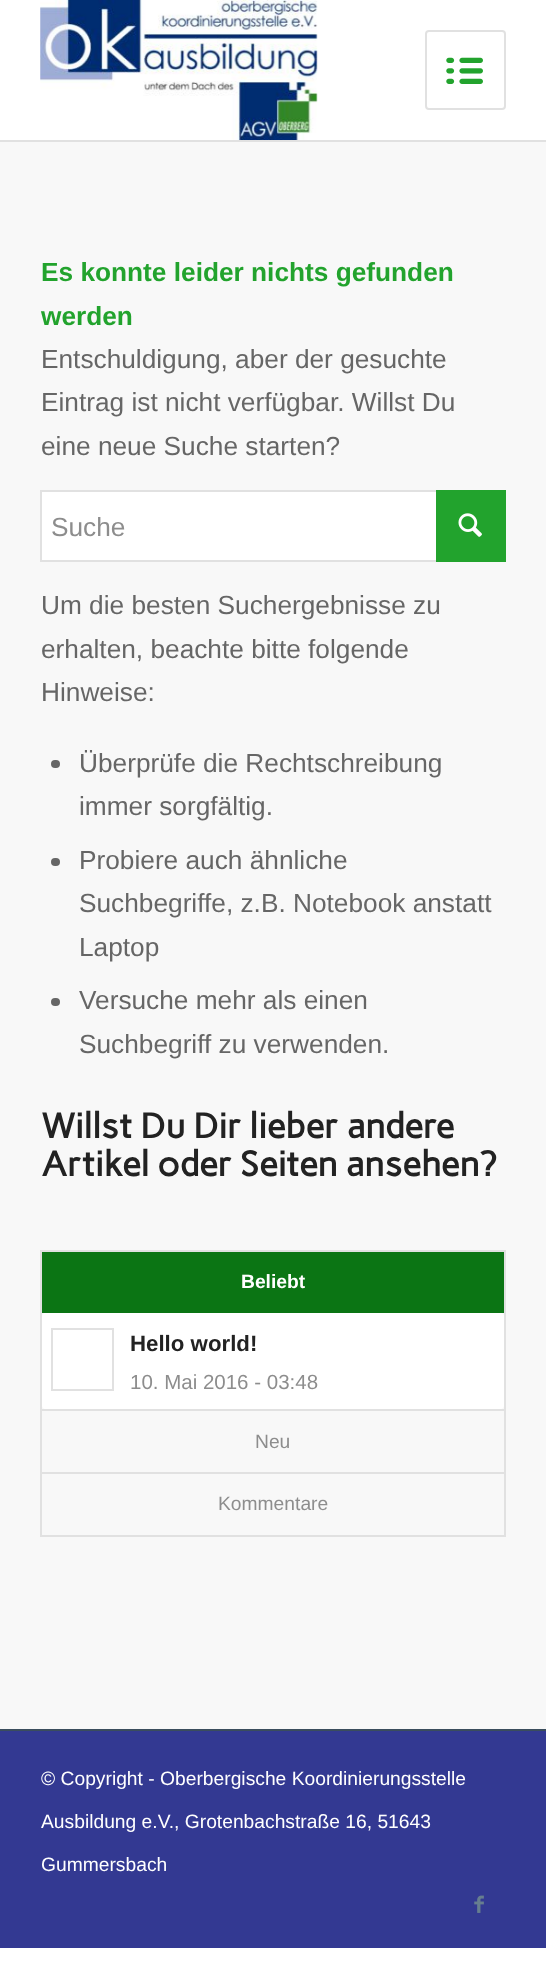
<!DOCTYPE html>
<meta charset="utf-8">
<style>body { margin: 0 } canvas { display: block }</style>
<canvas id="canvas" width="546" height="1986"></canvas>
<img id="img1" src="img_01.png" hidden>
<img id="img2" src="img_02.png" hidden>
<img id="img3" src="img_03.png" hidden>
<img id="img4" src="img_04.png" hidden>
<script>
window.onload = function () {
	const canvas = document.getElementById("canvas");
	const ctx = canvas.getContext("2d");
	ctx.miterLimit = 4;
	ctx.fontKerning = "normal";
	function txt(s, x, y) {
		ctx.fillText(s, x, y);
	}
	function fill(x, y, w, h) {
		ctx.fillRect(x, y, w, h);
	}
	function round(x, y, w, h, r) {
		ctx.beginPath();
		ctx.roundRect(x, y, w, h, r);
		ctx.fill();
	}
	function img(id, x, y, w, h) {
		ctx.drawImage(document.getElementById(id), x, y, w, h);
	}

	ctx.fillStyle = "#FFFFFF";
	fill(0, 0, 546, 1986);
	ctx.fillStyle = "#E1E1E1";
	fill(0, 140, 546, 2);
	img("img1", 40, 0, 278, 140);
	ctx.beginPath();
	ctx.roundRect(426, 31, 79, 78, 3);
	ctx.strokeStyle = "#E1E1E1";
	ctx.lineWidth = 2;
	ctx.stroke();
	img("img2", 446, 57, 37, 27);
	ctx.fillStyle = "#F8F8F8";
	fill(0, 142, 546, 1587);
	ctx.fillStyle = "#FFFFFF";
	fill(42, 492, 394, 68);
	ctx.strokeRect(41, 491, 464, 70);
	ctx.fillStyle = "#22A32D";
	fill(436, 490, 70, 72);
	img("img3", 458, 513, 24, 24);
	ctx.fillStyle = "#666666";
	round(51, 760, 9, 8, 4);
	round(51, 858, 9, 8, 4);
	round(51, 998, 9, 8, 4);
	ctx.fillStyle = "#E1E1E1";
	fill(504, 1250, 2, 287);
	fill(40, 1535, 466, 2);
	fill(40, 1250, 2, 287);
	ctx.fillStyle = "#0B7514";
	fill(42, 1252, 462, 61);
	ctx.fillStyle = "#E1E1E1";
	fill(42, 1250, 462, 2);
	ctx.fillStyle = "#FFFFFF";
	round(42, 1313, 462, 96, 4);
	ctx.strokeRect(52, 1329, 61, 61);
	ctx.fillStyle = "#E1E1E1";
	fill(42, 1409, 462, 2);
	fill(42, 1472, 462, 2);
	ctx.fillStyle = "#333992";
	fill(0, 1731, 546, 217);
	ctx.fillStyle = "#3A4D5C";
	fill(0, 1729, 546, 2);
	img("img4", 474, 1895, 10, 18);
	ctx.font = "bold 26.25px Liberation Sans";
	ctx.fillStyle = "#22A32D";
	txt("Es konnte leider nichts gefunden", 41, 281);
	txt("werden", 41, 325);
	ctx.font = "26.25px Liberation Sans";
	ctx.fillStyle = "#666666";
	txt("Entschuldigung, aber der gesuchte", 41, 368);
	txt("Eintrag ist nicht verfügbar. Willst Du", 41, 411);
	txt("eine neue Suche starten?", 41, 455);
	ctx.fillStyle = "#8D8D8D";
	txt("Suche", 51, 536);
	ctx.fillStyle = "#666666";
	txt("Um die besten Suchergebnisse zu", 41, 614);
	txt("erhalten, beachte bitte folgende", 41, 658);
	txt("Hinweise:", 41, 701);
	txt("Überprüfe die Rechtschreibung", 79, 772);
	txt("immer sorgfältig.", 79, 815);
	txt("Probiere auch ähnliche", 79, 869);
	txt("Suchbegriffe, z.B. Notebook anstatt", 79, 912);
	txt("Laptop", 79, 956);
	txt("Versuche mehr als einen", 79, 1009);
	txt("Suchbegriff zu verwenden.", 79, 1053);
	ctx.font = "bold 35px Carme";
	ctx.fillStyle = "#222222";
	txt("Willst Du Dir lieber andere", 41, 1138);
	txt("Artikel oder Seiten ansehen?", 41, 1176);
	ctx.font = "bold 19.25px Liberation Sans";
	ctx.fillStyle = "#FFFFFF";
	txt("Beliebt", 241, 1288);
	ctx.font = "bold 22.25px Liberation Sans";
	ctx.fillStyle = "#222222";
	txt("Hello world!", 130, 1351);
	ctx.font = "20.5px Liberation Sans";
	ctx.fillStyle = "#8D8D8D";
	txt("10. Mai 2016 - 03:48", 130, 1389);
	ctx.font = "19.25px Liberation Sans";
	txt("Neu", 255, 1448);
	txt("Kommentare", 218, 1510);
	ctx.fillStyle = "#FFFFFF";
	txt("© Copyright - Oberbergische Koordinierungsstelle", 41, 1785);
	txt("Ausbildung e.V., Grotenbachstraße 16, 51643", 41, 1828);
	txt("Gummersbach", 41, 1871);
};
</script>
